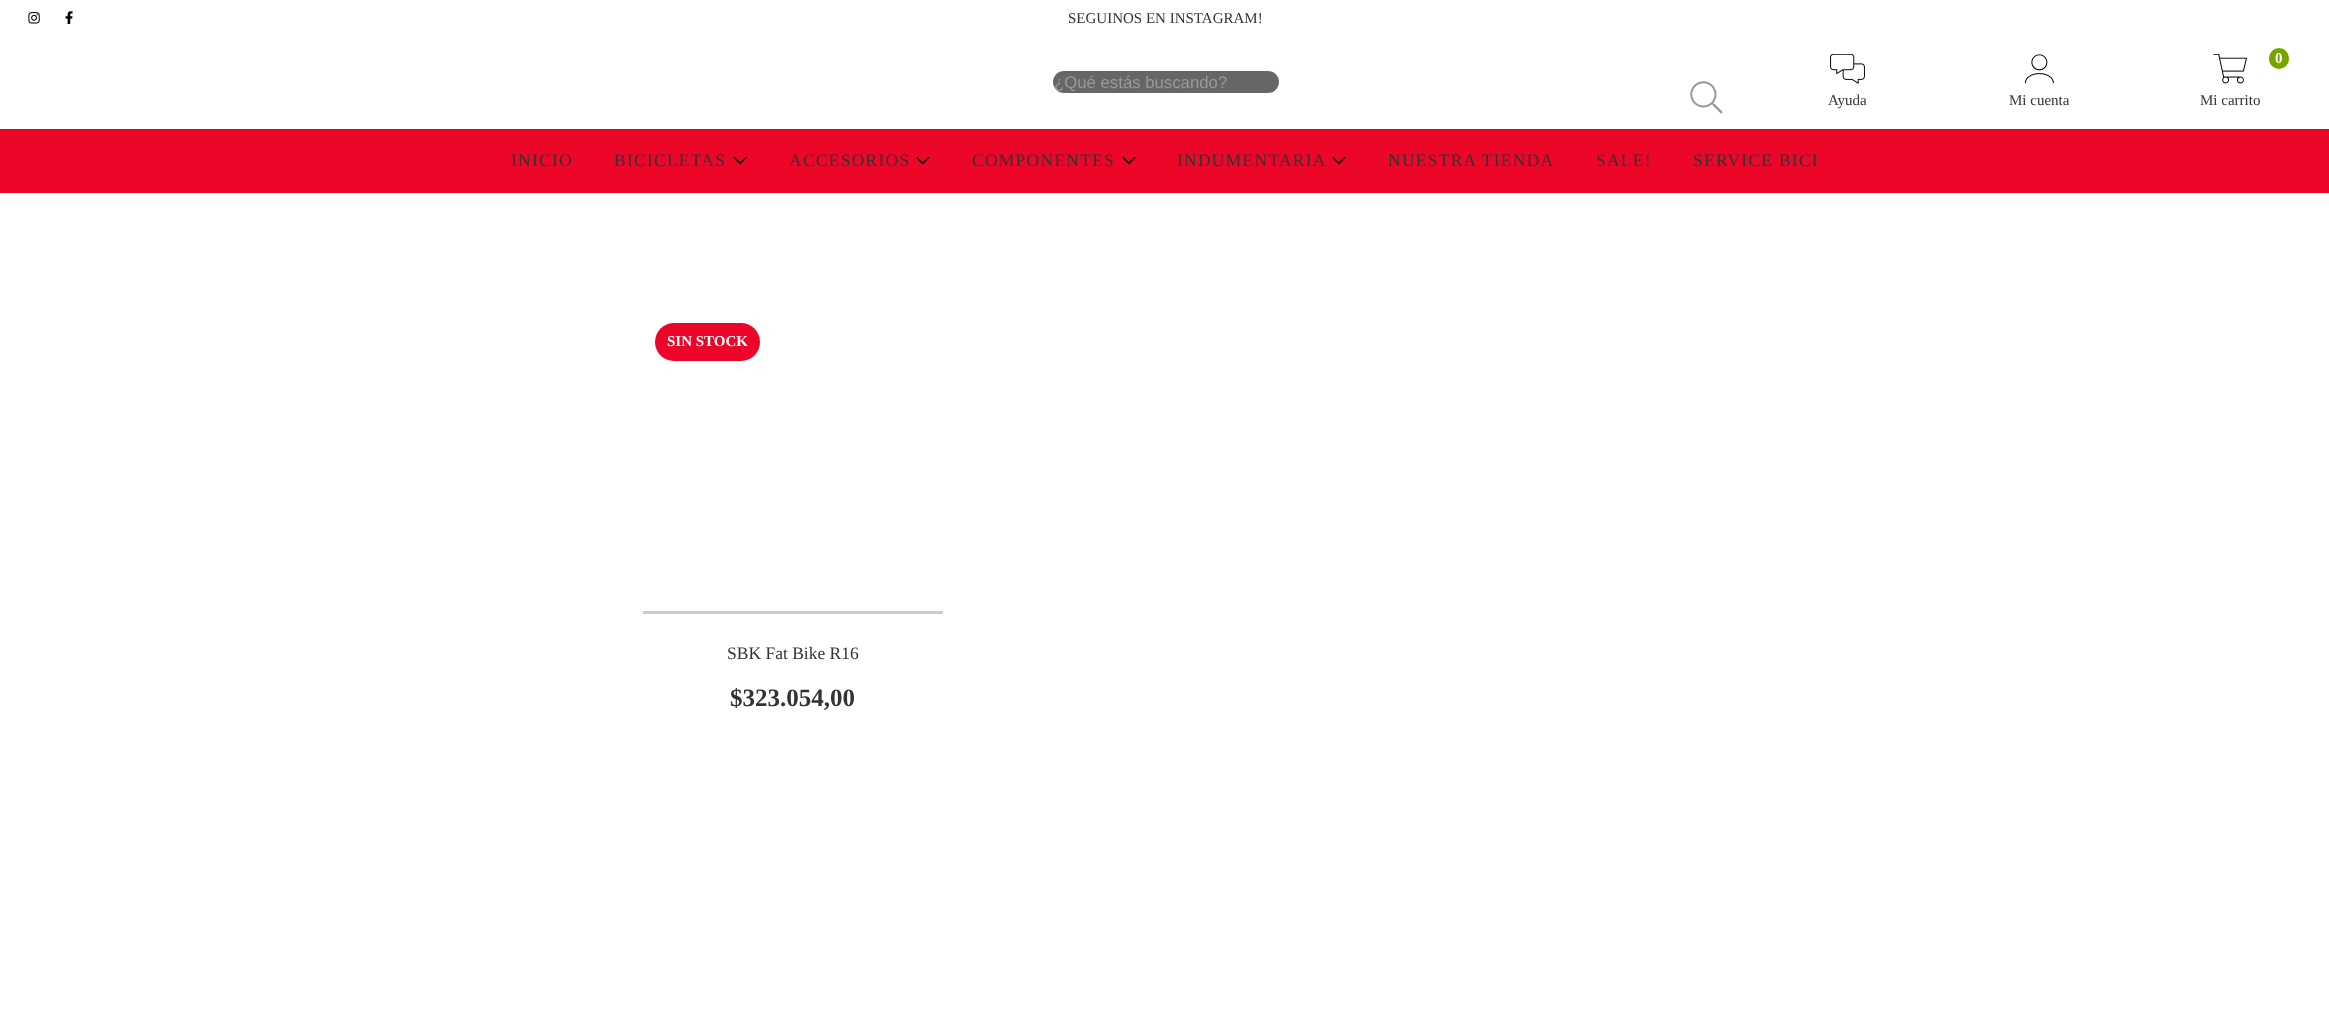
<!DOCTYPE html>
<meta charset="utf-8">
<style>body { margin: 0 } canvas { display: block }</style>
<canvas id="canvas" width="2329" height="1029"></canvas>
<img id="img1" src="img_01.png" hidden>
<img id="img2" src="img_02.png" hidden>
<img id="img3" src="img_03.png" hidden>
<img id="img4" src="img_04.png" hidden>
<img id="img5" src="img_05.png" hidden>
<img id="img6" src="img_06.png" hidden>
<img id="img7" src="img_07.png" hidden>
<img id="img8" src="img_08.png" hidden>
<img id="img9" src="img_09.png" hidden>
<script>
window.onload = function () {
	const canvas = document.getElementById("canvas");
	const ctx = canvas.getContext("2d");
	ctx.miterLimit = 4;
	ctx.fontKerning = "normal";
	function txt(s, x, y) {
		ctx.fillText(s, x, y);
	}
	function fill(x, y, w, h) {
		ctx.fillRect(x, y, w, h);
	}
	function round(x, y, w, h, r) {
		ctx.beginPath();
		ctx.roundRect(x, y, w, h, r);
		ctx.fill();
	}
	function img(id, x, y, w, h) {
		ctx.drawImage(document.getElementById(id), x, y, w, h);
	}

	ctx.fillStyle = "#FFFFFF";
	fill(0, 0, 2329, 1029);
	img("img1", 28, 12, 12, 12);
	img("img2", 65, 11, 8, 13);
	ctx.fillStyle = "#666666";
	round(1053, 71, 226, 22, 11);
	img("img3", 1690, 81, 33, 33);
	img("img4", 1830, 54, 35, 30);
	img("img5", 2024, 54, 30, 30);
	img("img6", 2213, 54, 34, 30);
	ctx.fillStyle = "#76A400";
	round(2269, 48, 20, 21, 10);
	ctx.fillStyle = "#EC0729";
	fill(0, 130, 2329, 63);
	ctx.fillStyle = "#D80022";
	fill(0, 129, 2329, 1);
	img("img7", 733, 156, 14, 9);
	img("img8", 916, 156, 14, 9);
	img("img9", 1122, 156, 14, 9);
	img("img9", 1332, 156, 14, 9);
	ctx.fillStyle = "#EC0529";
	round(655, 323, 105, 38, 19);
	ctx.fillStyle = "#CCCCCC";
	fill(643, 611, 300, 3);
	ctx.font = "15px Liberation Serif";
	ctx.fillStyle = "#333333";
	txt("SEGUINOS EN INSTAGRAM!", 1068, 23);
	ctx.save();
	ctx.beginPath();
	ctx.roundRect(1053, 71, 226, 22, 11);
	ctx.clip();
	ctx.font = "16.75px Liberation Sans";
	ctx.fillStyle = "#999999";
	txt("¿Qué estás buscando?", 1054, 88);
	ctx.restore();
	txt("Ayuda", 1828, 105);
	txt("Mi cuenta", 2009, 105);
	ctx.font = "bold 15px Liberation Serif";
	ctx.fillStyle = "#FFFFFF";
	txt("0", 2275, 63);
	ctx.font = "15px Liberation Serif";
	ctx.fillStyle = "#333333";
	txt("Mi carrito", 2200, 105);
	ctx.letterSpacing = "1.25px";
	ctx.font = "17.5px Liberation Serif";
	txt("INICIO", 511, 166);
	txt("BICICLETAS", 614, 166);
	txt("ACCESORIOS", 789, 166);
	txt("COMPONENTES", 972, 166);
	txt("INDUMENTARIA", 1177, 166);
	txt("NUESTRA TIENDA", 1388, 166);
	txt("SALE!", 1596, 166);
	txt("SERVICE BICI", 1693, 166);
	ctx.letterSpacing = "0px";
	ctx.font = "bold 15px Liberation Serif";
	ctx.fillStyle = "#FFFFFF";
	txt("SIN STOCK", 667, 346);
	ctx.font = "17.5px Liberation Serif";
	ctx.fillStyle = "#333333";
	txt("SBK Fat Bike R16", 727, 659);
	ctx.font = "bold 25px Liberation Serif";
	txt("$323.054,00", 730, 706);
};
</script>
